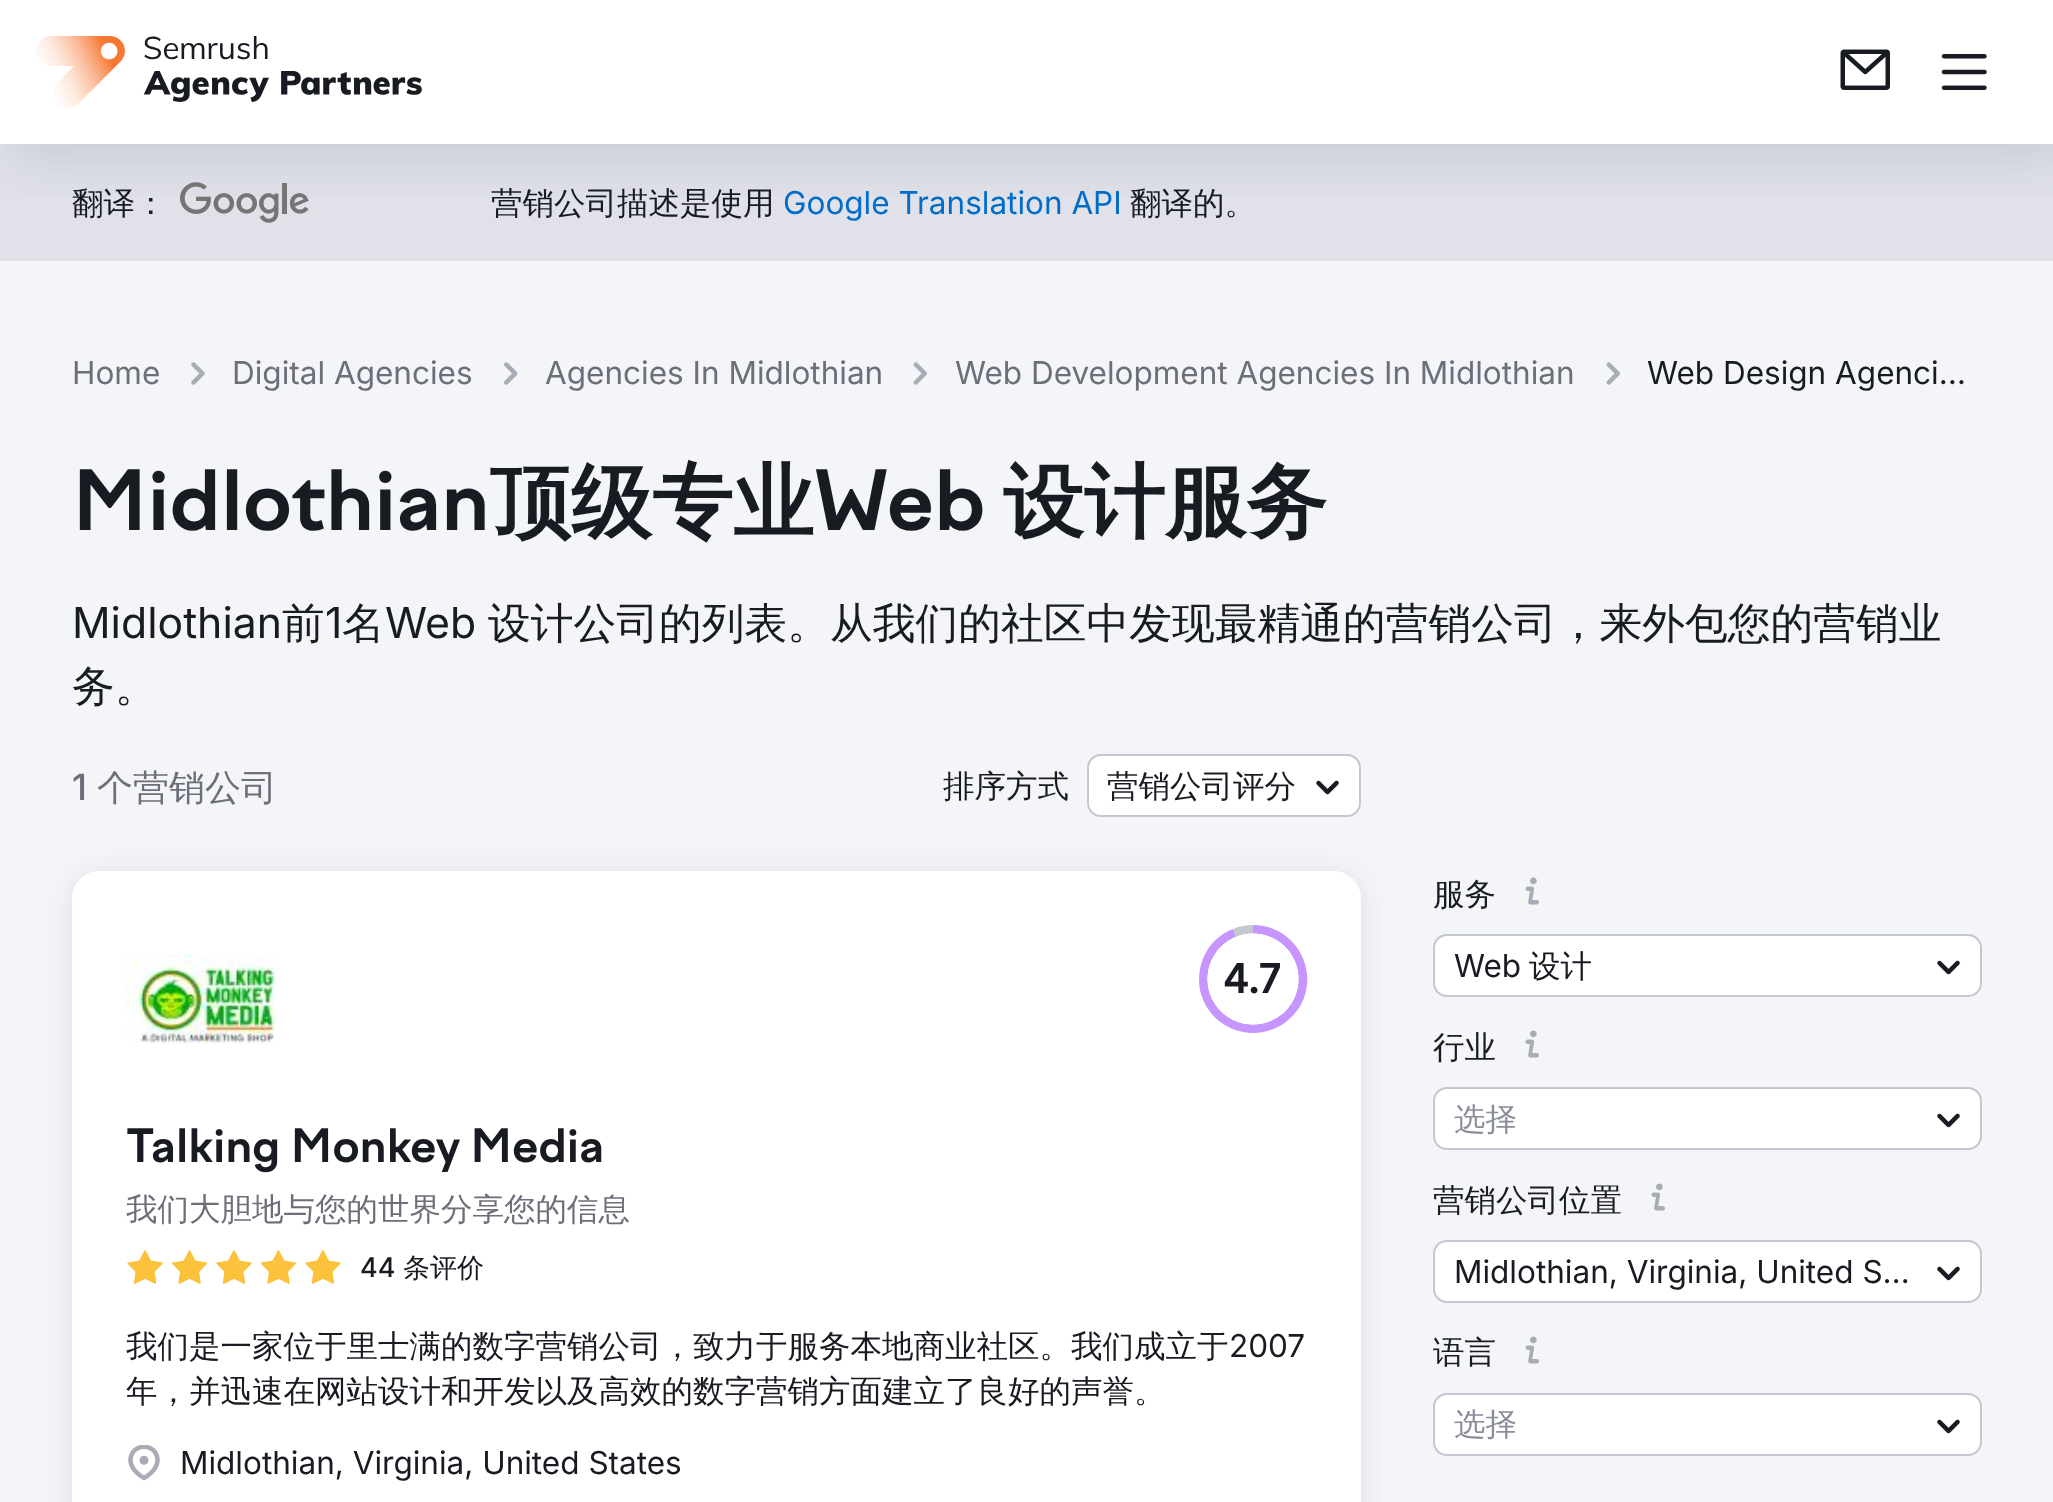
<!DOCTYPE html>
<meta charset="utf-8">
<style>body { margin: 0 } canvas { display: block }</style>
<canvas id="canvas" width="2053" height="1502"></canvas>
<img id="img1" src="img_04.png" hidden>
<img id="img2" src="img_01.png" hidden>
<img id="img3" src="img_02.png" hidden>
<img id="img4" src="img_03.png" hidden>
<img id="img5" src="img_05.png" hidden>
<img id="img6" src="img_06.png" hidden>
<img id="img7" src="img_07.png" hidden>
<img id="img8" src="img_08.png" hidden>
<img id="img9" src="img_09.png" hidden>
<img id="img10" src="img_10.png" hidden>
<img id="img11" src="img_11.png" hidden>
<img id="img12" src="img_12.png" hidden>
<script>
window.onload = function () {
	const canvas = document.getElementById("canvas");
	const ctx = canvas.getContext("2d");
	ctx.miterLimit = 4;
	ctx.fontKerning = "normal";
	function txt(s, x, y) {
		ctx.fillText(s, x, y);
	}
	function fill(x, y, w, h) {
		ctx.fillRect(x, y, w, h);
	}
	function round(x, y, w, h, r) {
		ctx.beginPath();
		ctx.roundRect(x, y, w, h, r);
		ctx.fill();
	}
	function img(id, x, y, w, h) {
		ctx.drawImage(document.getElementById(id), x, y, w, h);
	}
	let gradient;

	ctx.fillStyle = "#FFFFFF";
	fill(0, 0, 2053, 1502);
	ctx.fillStyle = "#E0E1E9";
	fill(0, 144, 2053, 117);
	img("img1", 180, 182, 129, 41);
	ctx.save();
	ctx.beginPath();
	ctx.rect(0, 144, 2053, 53);
	ctx.clip();
	ctx.fillStyle = "rgba(137, 141, 154, 0.3)";
	ctx.filter = "blur(28px)";
	ctx.beginPath();
	ctx.rect(11, 11, 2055, 144);
	ctx.fill();
	ctx.filter = "none";
	ctx.restore();
	img("img2", 36, 36, 386, 72);
	img("img3", 1840, 49, 50, 41);
	img("img4", 1941, 54, 46, 36);
	ctx.fillStyle = "#F4F5F9";
	fill(0, 261, 2053, 1241);
	img("img5", 191, 362, 14, 23);
	img("img6", 504, 362, 14, 23);
	img("img7", 913, 362, 14, 23);
	img("img7", 1606, 362, 14, 23);
	ctx.fillStyle = "#FFFFFF";
	ctx.beginPath();
	ctx.roundRect(1088, 755, 272, 61, 13);
	ctx.fill();
	ctx.strokeStyle = "#C4C7CF";
	ctx.lineWidth = 2;
	ctx.stroke();
	img("img8", 1316, 780, 23, 15);
	ctx.fillStyle = "rgba(25, 27, 35, 0.1)";
	ctx.filter = "blur(13.5px)";
	ctx.beginPath();
	ctx.roundRect(72, 873, 1289, 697, 27);
	ctx.fill();
	ctx.filter = "none";
	ctx.fillStyle = "#FFFFFF";
	round(72, 871, 1289, 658, 27);
	img("img9", 126, 953, 150, 91);
	ctx.fillStyle = "#C695FF";
	ctx.beginPath();
	ctx.moveTo(1253, 979);
	ctx.lineTo(1253, 925);
	ctx.bezierCurveTo(1281, 925, 1304, 946, 1307, 974);
	ctx.bezierCurveTo(1310, 1001, 1291, 1027, 1263, 1032);
	ctx.bezierCurveTo(1236, 1037, 1209, 1021, 1201, 994);
	ctx.bezierCurveTo(1194, 967, 1207, 939, 1233, 929);
	ctx.closePath();
	ctx.fill();
	ctx.fillStyle = "#C4C7CF";
	ctx.beginPath();
	ctx.moveTo(1253, 979);
	ctx.lineTo(1233, 929);
	ctx.bezierCurveTo(1240, 926, 1246, 925, 1253, 925);
	ctx.closePath();
	ctx.fill();
	gradient = ctx.createRadialGradient(1253, 979, 0, 1253, 979, 54);
	gradient.addColorStop(0.84, "#FFFFFF");
	gradient.addColorStop(0.85, "rgba(255, 255, 255, 0)");
	gradient.addColorStop(1, "rgba(0, 0, 0, 0)");
	ctx.fillStyle = gradient;
	fill(1207, 933, 92, 92);
	img("img10", 127, 1250, 214, 34);
	img("img11", 128, 1445, 32, 36);
	img("img12", 1525, 877, 14, 28);
	ctx.fillStyle = "#FFFFFF";
	ctx.beginPath();
	ctx.roundRect(1434, 935, 547, 61, 13);
	ctx.fill();
	ctx.stroke();
	img("img8", 1937, 960, 23, 15);
	img("img12", 1525, 1030, 14, 28);
	ctx.beginPath();
	ctx.roundRect(1434, 1088, 547, 61, 13);
	ctx.fill();
	ctx.stroke();
	img("img8", 1937, 1113, 23, 15);
	img("img12", 1651, 1183, 14, 28);
	ctx.beginPath();
	ctx.roundRect(1434, 1241, 547, 61, 13);
	ctx.fill();
	ctx.stroke();
	img("img8", 1937, 1266, 23, 15);
	img("img12", 1525, 1336, 14, 28);
	ctx.beginPath();
	ctx.roundRect(1434, 1394, 547, 61, 13);
	ctx.fill();
	ctx.stroke();
	img("img8", 1937, 1419, 23, 15);
	ctx.font = "500 31.5px WenQuanYi Zen Hei";
	ctx.fillStyle = "#191B23";
	txt("翻译：", 72, 214);
	txt("营销公司描述是使用", 491, 214);
	ctx.font = "31.5px Inter";
	ctx.fillStyle = "#006DCA";
	txt("Google Translation API", 783, 214);
	ctx.font = "500 31.5px WenQuanYi Zen Hei";
	ctx.fillStyle = "#191B23";
	txt("翻译的。", 1130, 214);
	ctx.font = "31.5px Inter";
	ctx.fillStyle = "#6C6E79";
	txt("Home", 72, 384);
	txt("Digital Agencies", 232, 384);
	txt("Agencies In Midlothian", 545, 384);
	txt("Web Development Agencies In Midlothian", 955, 384);
	ctx.fillStyle = "#191B23";
	txt("Web Design Agenci…", 1647, 384);
	ctx.font = "bold 81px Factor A";
	txt("Midlothian", 72, 530);
	ctx.font = "bold 81px WenQuanYi Zen Hei";
	txt("顶级专业", 490, 530);
	ctx.font = "bold 81px Factor A";
	txt("Web", 814, 530);
	ctx.font = "bold 81px WenQuanYi Zen Hei";
	txt("设计服务", 1003, 530);
	ctx.font = "42.75px Inter";
	txt("Midlothian", 72, 638);
	ctx.font = "500 42.75px WenQuanYi Zen Hei";
	txt("前", 282, 638);
	ctx.font = "42.75px Inter";
	txt("1", 325, 638);
	ctx.font = "500 42.75px WenQuanYi Zen Hei";
	txt("名", 342, 638);
	ctx.font = "42.75px Inter";
	txt("Web", 385, 638);
	ctx.font = "500 42.75px WenQuanYi Zen Hei";
	txt("设计公司的列表。从我们的社区中发现最精通的营销公司，来外包您的营销业", 488, 638);
	txt("务。", 72, 701);
	ctx.font = "500 36px Inter";
	ctx.fillStyle = "#6C6E79";
	txt("1", 72, 800);
	ctx.font = "500 36px WenQuanYi Zen Hei";
	txt("个营销公司", 97, 800);
	ctx.font = "500 31.5px WenQuanYi Zen Hei";
	ctx.fillStyle = "#191B23";
	txt("排序方式", 943, 797);
	txt("营销公司评分", 1107, 797);
	ctx.font = "bold 40px Factor A";
	txt("4.7", 1224, 993);
	ctx.font = "bold 45px Factor A";
	txt("Talking Monkey Media", 126, 1162);
	ctx.font = "500 31.5px WenQuanYi Zen Hei";
	ctx.fillStyle = "#6C6E79";
	txt("我们大胆地与您的世界分享您的信息", 126, 1220);
	ctx.font = "500 27px Inter";
	ctx.fillStyle = "#191B23";
	txt("44", 360, 1277);
	ctx.font = "500 27px WenQuanYi Zen Hei";
	txt("条评价", 403, 1277);
	ctx.font = "500 31.5px WenQuanYi Zen Hei";
	txt("我们是一家位于里士满的数字营销公司，致力于服务本地商业社区。我们成立于", 126, 1357);
	ctx.font = "31.5px Inter";
	txt("2007", 1229, 1357);
	ctx.font = "500 31.5px WenQuanYi Zen Hei";
	txt("年，并迅速在网站设计和开发以及高效的数字营销方面建立了良好的声誉。", 126, 1402);
	ctx.font = "31.5px Inter";
	txt("Midlothian, Virginia, United States", 180, 1474);
	ctx.font = "500 31.5px WenQuanYi Zen Hei";
	txt("服务", 1433, 905);
	ctx.font = "31.5px Inter";
	txt("Web", 1454, 977);
	ctx.font = "500 31.5px WenQuanYi Zen Hei";
	txt("设计", 1529, 977);
	txt("行业", 1433, 1058);
	ctx.fillStyle = "#8A8E9B";
	txt("选择", 1454, 1130);
	ctx.fillStyle = "#191B23";
	txt("营销公司位置", 1433, 1211);
	ctx.font = "31.5px Inter";
	txt("Midlothian, Virginia, United S…", 1454, 1283);
	ctx.font = "500 31.5px WenQuanYi Zen Hei";
	txt("语言", 1433, 1363);
	ctx.fillStyle = "#8A8E9B";
	txt("选择", 1454, 1435);
};
</script>
